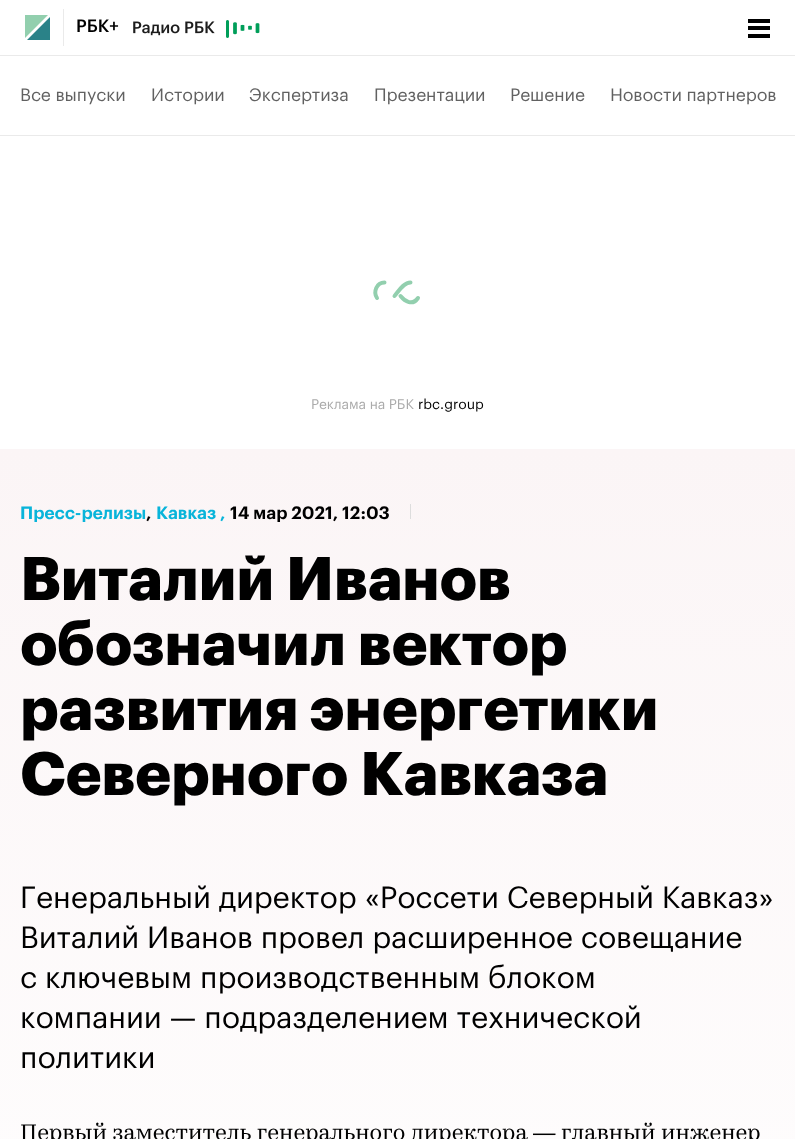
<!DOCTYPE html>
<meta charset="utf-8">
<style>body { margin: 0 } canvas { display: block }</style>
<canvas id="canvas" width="795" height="1139"></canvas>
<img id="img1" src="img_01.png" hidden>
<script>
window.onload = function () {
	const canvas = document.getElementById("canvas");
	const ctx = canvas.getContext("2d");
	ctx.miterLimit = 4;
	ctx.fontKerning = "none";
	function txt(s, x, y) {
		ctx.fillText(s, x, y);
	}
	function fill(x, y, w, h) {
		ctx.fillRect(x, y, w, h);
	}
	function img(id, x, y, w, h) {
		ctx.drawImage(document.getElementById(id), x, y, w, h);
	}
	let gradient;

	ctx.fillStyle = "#FFFFFF";
	fill(0, 0, 795, 1139);
	ctx.fillStyle = "#EAEAEA";
	fill(0, 55, 795, 1);
	ctx.fillStyle = "#92CFAE";
	ctx.beginPath();
	ctx.moveTo(25, 15);
	ctx.lineTo(25, 38);
	ctx.lineTo(48, 15);
	ctx.closePath();
	ctx.fill("evenodd");
	ctx.fillStyle = "#2A8288";
	ctx.beginPath();
	ctx.moveTo(27, 40);
	ctx.lineTo(50, 40);
	ctx.lineTo(50, 17);
	ctx.closePath();
	ctx.fill("evenodd");
	ctx.fillStyle = "#EAEAEA";
	fill(63, 9, 1, 37);
	img("img1", 133, 20, 127, 18);
	ctx.fillStyle = "#000000";
	fill(748, 19, 22, 4);
	fill(748, 26, 22, 4);
	fill(748, 34, 22, 4);
	ctx.fillStyle = "#EAEAEA";
	fill(0, 135, 795, 1);
	ctx.beginPath();
	ctx.moveTo(384.5, 282.5);
	ctx.bezierCurveTo(376.5, 282.5, 373, 292, 377, 298);
	ctx.moveTo(394.5, 296);
	ctx.bezierCurveTo(398.5, 291.5, 403.5, 282.5, 410.5, 282.5);
	ctx.moveTo(418, 298);
	ctx.bezierCurveTo(412.5, 306, 405, 301.5, 400.5, 296);
	ctx.strokeStyle = "#92CFAE";
	ctx.lineWidth = 4;
	ctx.lineCap = "round";
	ctx.stroke();
	gradient = ctx.createLinearGradient(397, 449, 398, 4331);
	gradient.addColorStop(0, "#FBF5F6");
	gradient.addColorStop(0.26, "#FFFFFF");
	ctx.fillStyle = gradient;
	fill(0, 449, 795, 690);
	ctx.fillStyle = "#DDDDDD";
	fill(410, 504, 1, 15);
	ctx.font = "500 17.5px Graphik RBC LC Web";
	ctx.fillStyle = "#000000";
	txt("РБК+", 76, 32);
	ctx.font = "17.5px Graphik RBC LC Web";
	ctx.fillStyle = "#616161";
	txt("Все выпуски", 20, 101);
	txt("Истории", 151, 101);
	txt("Экспертиза", 249, 101);
	txt("Презентации", 374, 101);
	txt("Решение", 510, 101);
	txt("Новости партнеров", 610, 101);
	ctx.font = "13.75px Graphik RBC LC Web";
	ctx.fillStyle = "#ABABAB";
	txt("Реклама на РБК", 311, 409);
	ctx.fillStyle = "#000000";
	txt("rbc.group", 418, 409);
	ctx.font = "600 17.5px Graphik RBC LC Web";
	ctx.fillStyle = "#08B4DA";
	txt("Пресс-релизы", 20, 519);
	ctx.fillStyle = "#000000";
	txt(",", 146, 519);
	ctx.fillStyle = "#08B4DA";
	txt("Кавказ", 156, 519);
	txt(",", 220, 519);
	ctx.fillStyle = "#000000";
	txt("14 мар 2021, 12:03", 230, 519);
	ctx.font = "bold 60px Graphik RBC LC Web";
	txt("Виталий Иванов", 20, 600);
	txt("обозначил вектор", 20, 665);
	txt("развития энергетики", 20, 730);
	txt("Северного Кавказа", 20, 795);
	ctx.font = "30px Graphik RBC LC Web";
	txt("Генеральный директор «Россети Северный Кавказ»", 20, 908);
	txt("Виталий Иванов провел расширенное совещание", 20, 948);
	txt("с ключевым производственным блоком", 20, 988);
	txt("компании — подразделением технической", 20, 1028);
	txt("политики", 20, 1068);
	ctx.font = "22.5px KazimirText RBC";
	txt("Первый заместитель генерального директора", 20, 1140);
	ctx.font = "22.5px Liberation Sans";
	txt("—", 533, 1140);
	ctx.font = "22.5px KazimirText RBC";
	txt("главный инженер", 561, 1140);
};
</script>
